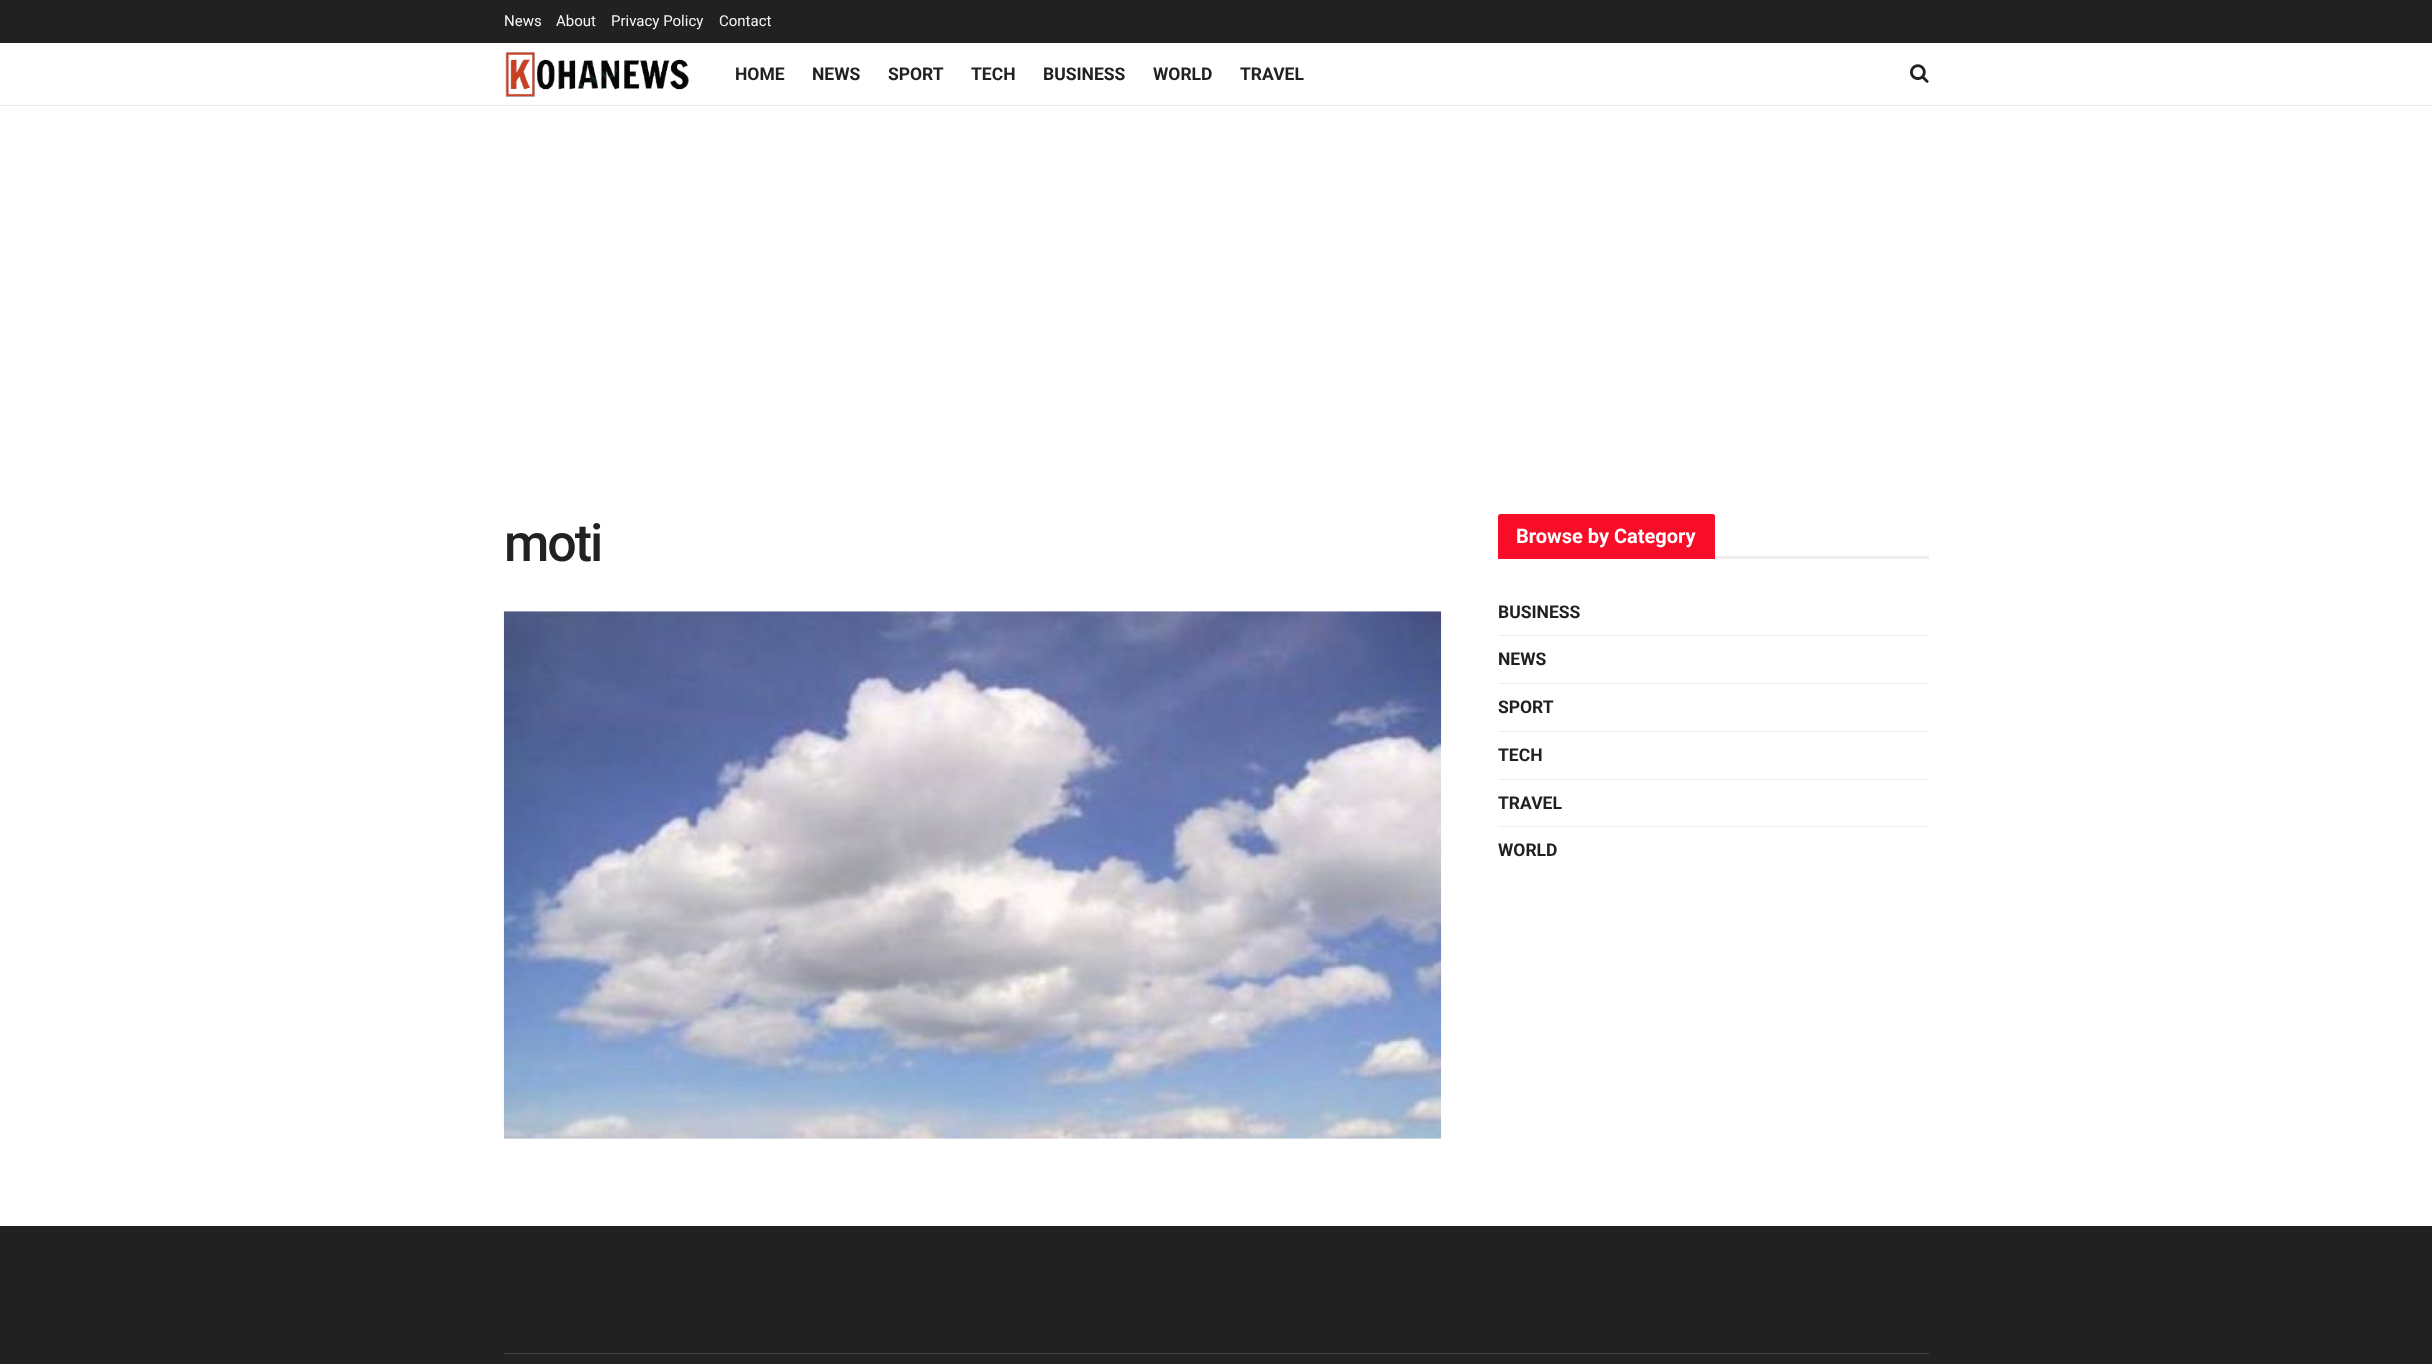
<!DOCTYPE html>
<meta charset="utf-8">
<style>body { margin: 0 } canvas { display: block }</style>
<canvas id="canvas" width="2432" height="1364"></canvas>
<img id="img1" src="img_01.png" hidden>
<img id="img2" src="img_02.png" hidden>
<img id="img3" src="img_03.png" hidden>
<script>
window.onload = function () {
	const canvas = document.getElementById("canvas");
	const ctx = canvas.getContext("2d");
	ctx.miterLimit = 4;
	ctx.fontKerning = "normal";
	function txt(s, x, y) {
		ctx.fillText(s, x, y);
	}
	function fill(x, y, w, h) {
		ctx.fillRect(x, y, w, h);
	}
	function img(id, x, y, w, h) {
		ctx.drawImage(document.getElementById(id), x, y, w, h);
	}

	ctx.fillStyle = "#FFFFFF";
	fill(0, 0, 2432, 1364);
	ctx.fillStyle = "#212121";
	fill(0, 0, 2432, 43);
	ctx.fillStyle = "#E8E8E8";
	fill(0, 105, 2432, 1);
	img("img1", 505, 52, 184, 45);
	img("img2", 1910, 64, 19, 19);
	ctx.fillStyle = "#F7F7F7";
	fill(504, 611, 937, 528);
	img("img3", 503, 611, 939, 528);
	ctx.fillStyle = "#EEEEEE";
	fill(1715, 556, 214, 3);
	ctx.fillStyle = "#F70D28";
	ctx.beginPath();
	ctx.roundRect(1498, 514, 217, 45, [2.5, 2.5, 0, 0]);
	ctx.fill();
	ctx.fillStyle = "#EEEEEE";
	fill(1498, 635, 431, 1);
	fill(1498, 683, 431, 1);
	fill(1498, 731, 431, 1);
	fill(1498, 779, 431, 1);
	fill(1498, 826, 431, 1);
	ctx.fillStyle = "#212121";
	fill(0, 1226, 2432, 138);
	ctx.fillStyle = "#424242";
	fill(504, 1353, 1425, 1);
	ctx.font = "15px Roboto";
	ctx.fillStyle = "#F5F5F5";
	txt("News", 504, 26);
	txt("About", 556, 26);
	txt("Privacy Policy", 611, 26);
	txt("Contact", 719, 26);
	ctx.font = "bold 17.5px Roboto";
	ctx.fillStyle = "#212121";
	txt("HOME", 735, 80);
	txt("NEWS", 812, 80);
	txt("SPORT", 888, 80);
	txt("TECH", 971, 80);
	txt("BUSINESS", 1043, 80);
	txt("WORLD", 1153, 80);
	txt("TRAVEL", 1240, 80);
	ctx.letterSpacing = "-2px";
	ctx.font = "500 52px Roboto";
	txt("moti", 504, 561);
	ctx.letterSpacing = "0px";
	ctx.font = "bold 20px Roboto";
	ctx.fillStyle = "#FFFFFF";
	txt("Browse by Category", 1516, 543);
	ctx.font = "bold 17.5px Roboto";
	ctx.fillStyle = "#212121";
	txt("BUSINESS", 1498, 618);
	txt("NEWS", 1498, 665);
	txt("SPORT", 1498, 713);
	txt("TECH", 1498, 761);
	txt("TRAVEL", 1498, 809);
	txt("WORLD", 1498, 856);
};
</script>
